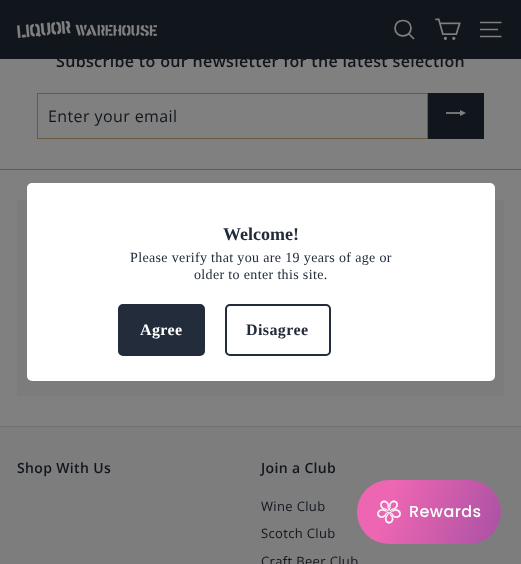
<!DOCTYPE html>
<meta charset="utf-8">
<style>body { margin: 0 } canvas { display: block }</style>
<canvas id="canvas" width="521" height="564"></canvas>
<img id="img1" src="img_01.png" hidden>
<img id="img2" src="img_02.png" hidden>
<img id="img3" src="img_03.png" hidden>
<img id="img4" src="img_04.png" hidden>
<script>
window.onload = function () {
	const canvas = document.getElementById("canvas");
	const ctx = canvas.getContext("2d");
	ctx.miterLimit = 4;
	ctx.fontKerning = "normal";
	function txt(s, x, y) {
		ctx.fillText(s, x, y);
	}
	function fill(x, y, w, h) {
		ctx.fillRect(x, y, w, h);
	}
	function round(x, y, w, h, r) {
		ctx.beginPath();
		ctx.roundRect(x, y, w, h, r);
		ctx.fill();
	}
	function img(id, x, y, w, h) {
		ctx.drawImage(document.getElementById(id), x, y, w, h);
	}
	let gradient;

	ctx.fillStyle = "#808080";
	fill(0, 0, 521, 564);
	ctx.fillStyle = "#7C7C7C";
	fill(17, 200, 487, 196);
	ctx.fillStyle = "#11161D";
	fill(0, 0, 521, 59);
	img("img1", 17, 21, 140, 17);
	ctx.beginPath();
	ctx.moveTo(411, 28);
	ctx.bezierCurveTo(411, 38.5, 395, 38.5, 395, 28);
	ctx.bezierCurveTo(395, 18, 411, 18, 411, 28);
	ctx.closePath();
	ctx.moveTo(414, 39);
	ctx.lineTo(408.5, 33.5);
	ctx.strokeStyle = "#808080";
	ctx.lineWidth = 1.7;
	ctx.stroke();
	img("img2", 435, 18, 26, 22);
	ctx.beginPath();
	ctx.moveTo(480, 22.5);
	ctx.lineTo(501.5, 22.5);
	ctx.moveTo(480, 29.5);
	ctx.lineTo(498, 29.5);
	ctx.moveTo(480, 36.5);
	ctx.lineTo(501.5, 36.5);
	ctx.stroke();
	ctx.strokeStyle = "#6A5A44";
	ctx.lineWidth = 1;
	ctx.strokeRect(37.5, 93.5, 390, 45);
	fill(428, 93, 56, 46);
	img("img3", 446, 110, 20, 6);
	ctx.fillStyle = "#6A5A44";
	fill(0, 169, 521, 1);
	ctx.fillStyle = "#7D7D7E";
	fill(0, 427, 521, 137);
	ctx.fillStyle = "#727272";
	fill(0, 426, 521, 1);
	ctx.fillStyle = "#FFFFFF";
	round(27, 183, 468, 198, 5);
	ctx.fillStyle = "#222C3A";
	ctx.beginPath();
	ctx.roundRect(119, 305, 85, 50, 4);
	ctx.fill();
	ctx.strokeStyle = "#222C3A";
	ctx.lineWidth = 2;
	ctx.stroke();
	ctx.beginPath();
	ctx.roundRect(226, 305, 104, 50, 4);
	ctx.stroke();
	gradient = ctx.createLinearGradient(355, 486, 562, 559);
	gradient.addColorStop(0.17, "#ED66B2");
	gradient.addColorStop(1, "#86469C");
	ctx.fillStyle = gradient;
	round(357, 480, 144, 64, 32);
	img("img4", 377, 500, 24, 24);
	ctx.letterSpacing = "0.35px";
	ctx.font = "600 16px Open Sans";
	ctx.fillStyle = "#11161D";
	txt("Subscribe to our newsletter for the latest selection", 56, 67);
	ctx.letterSpacing = "0.4px";
	ctx.font = "16px Open Sans";
	txt("Enter your email", 48, 122);
	ctx.letterSpacing = "0.35px";
	ctx.font = "600 14px Open Sans";
	txt("Shop With Us", 17, 473);
	txt("Join a Club", 261, 473);
	ctx.font = "13px Open Sans";
	txt("Wine Club", 261, 511);
	txt("Scotch Club", 261, 538);
	txt("Craft Beer Club", 261, 566);
	ctx.letterSpacing = "0px";
	ctx.font = "bold 18px Liberation Serif";
	ctx.fillStyle = "#222C3A";
	txt("Welcome!", 223, 240);
	ctx.letterSpacing = "0.35px";
	ctx.font = "14px Liberation Serif";
	txt("Please verify that you are 19 years of age or", 130, 262);
	txt("older to enter this site.", 194, 279);
	ctx.letterSpacing = "0.4px";
	ctx.font = "bold 16px Liberation Serif";
	ctx.fillStyle = "#FFFFFF";
	txt("Agree", 140, 335);
	ctx.fillStyle = "#222C3A";
	txt("Disagree", 246, 335);
	ctx.font = "500 16px Poppins";
	ctx.fillStyle = "#FFFFFF";
	txt("Rewards", 409, 517);
};
</script>
